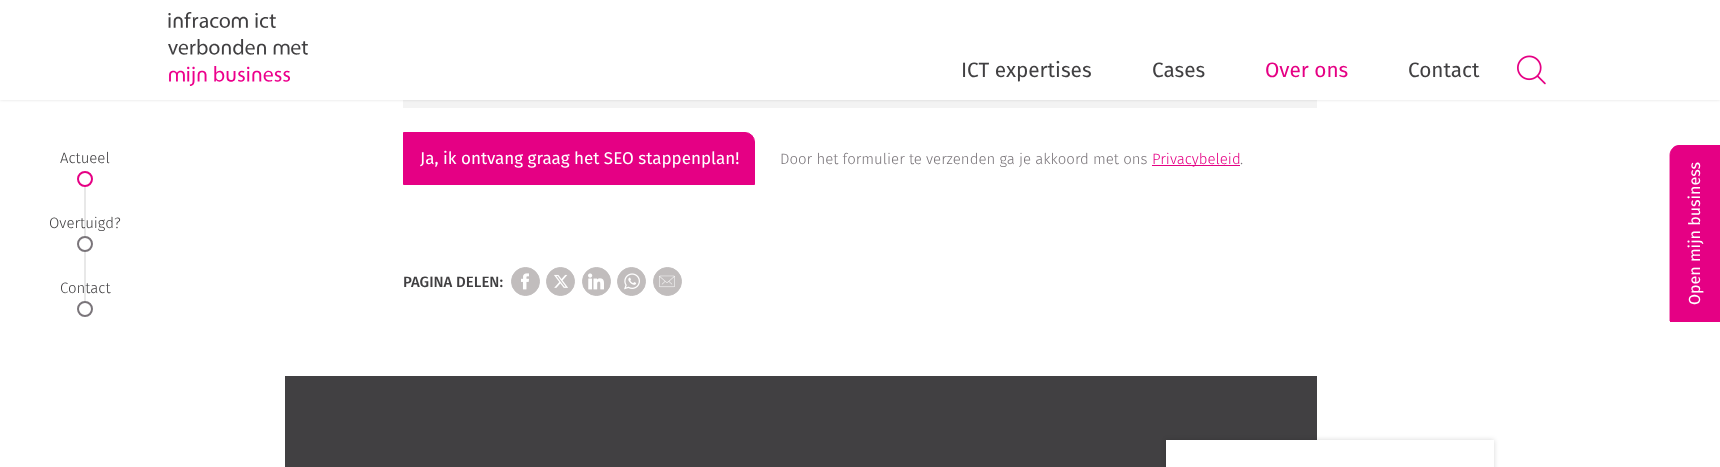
<!DOCTYPE html>
<meta charset="utf-8">
<style>body { margin: 0 } canvas { display: block }</style>
<canvas id="canvas" width="1720" height="467"></canvas>
<img id="img1" src="img_01.png" hidden>
<img id="img2" src="img_02.png" hidden>
<img id="img3" src="img_03.png" hidden>
<img id="img4" src="img_04.png" hidden>
<img id="img5" src="img_05.png" hidden>
<img id="img6" src="img_06.png" hidden>
<img id="img7" src="img_07.png" hidden>
<script>
window.onload = function () {
	const canvas = document.getElementById("canvas");
	const ctx = canvas.getContext("2d");
	ctx.miterLimit = 4;
	ctx.fontKerning = "normal";
	function txt(s, x, y) {
		ctx.fillText(s, x, y);
	}
	function fill(x, y, w, h) {
		ctx.fillRect(x, y, w, h);
	}
	function img(id, x, y, w, h) {
		ctx.drawImage(document.getElementById(id), x, y, w, h);
	}

	ctx.fillStyle = "#FFFFFF";
	fill(0, 0, 1720, 467);
	ctx.fillStyle = "#F3F3F3";
	fill(403, 100, 914, 8);
	ctx.fillStyle = "rgba(0, 0, 0, 0.12)";
	ctx.filter = "blur(1.5px)";
	ctx.beginPath();
	ctx.rect(0, 0, 1720, 100);
	ctx.fill();
	ctx.filter = "none";
	ctx.fillStyle = "#FFFFFF";
	fill(0, 0, 1720, 100);
	img("img1", 168, 12, 140, 74);
	img("img2", 1517, 55, 29, 30);
	ctx.fillStyle = "#E8E8E8";
	fill(84, 182, 2, 119);
	ctx.fillStyle = "#FFFFFF";
	ctx.beginPath();
	ctx.arc(85, 179, 7, 0, Math.PI * 2);
	ctx.fill();
	ctx.strokeStyle = "#E50084";
	ctx.lineWidth = 2;
	ctx.stroke();
	ctx.beginPath();
	ctx.arc(85, 244, 7, 0, Math.PI * 2);
	ctx.fill();
	ctx.strokeStyle = "#7A757A";
	ctx.stroke();
	ctx.beginPath();
	ctx.arc(85, 309, 7, 0, Math.PI * 2);
	ctx.stroke();
	ctx.fillStyle = "#E50084";
	ctx.beginPath();
	ctx.roundRect(403.5, 132.5, 351, 52, [0, 9.5, 0, 0]);
	ctx.fill();
	ctx.strokeStyle = "#E50084";
	ctx.lineWidth = 1;
	ctx.stroke();
	fill(1152, 165, 88, 1);
	ctx.fillStyle = "#C1BDBD";
	ctx.beginPath();
	ctx.arc(525.5, 281.5, 14, 0, Math.PI * 2);
	ctx.fill();
	ctx.strokeStyle = "#C1BDBD";
	ctx.stroke();
	img("img3", 521, 273, 8, 17);
	ctx.beginPath();
	ctx.arc(560.5, 281.5, 14, 0, Math.PI * 2);
	ctx.fill();
	ctx.stroke();
	img("img4", 554, 274, 14, 14);
	ctx.beginPath();
	ctx.arc(596.5, 281.5, 14, 0, Math.PI * 2);
	ctx.fill();
	ctx.stroke();
	img("img5", 588, 273, 16, 17);
	ctx.beginPath();
	ctx.arc(631.5, 281.5, 14, 0, Math.PI * 2);
	ctx.fill();
	ctx.stroke();
	img("img6", 624, 273, 16, 17);
	ctx.beginPath();
	ctx.arc(667.5, 281.5, 14, 0, Math.PI * 2);
	ctx.fill();
	ctx.stroke();
	img("img7", 659, 275, 16, 13);
	ctx.fillStyle = "#E50084";
	ctx.beginPath();
	ctx.moveTo(1670, 322);
	ctx.lineTo(1670, 155);
	ctx.bezierCurveTo(1670, 150, 1674, 145, 1679, 145);
	ctx.lineTo(1720, 145);
	ctx.lineTo(1720, 322);
	ctx.closePath();
	ctx.fill();
	ctx.beginPath();
	ctx.moveTo(1670, 321);
	ctx.lineTo(1670, 155);
	ctx.bezierCurveTo(1670, 150, 1674, 146, 1679, 146);
	ctx.lineTo(1719.5, 146);
	ctx.lineTo(1719.5, 321);
	ctx.closePath();
	ctx.strokeStyle = "#E50084";
	ctx.lineWidth = 0.9;
	ctx.stroke();
	ctx.fillStyle = "#414042";
	fill(285, 376, 1032, 91);
	ctx.fillStyle = "rgba(0, 0, 0, 0.16)";
	ctx.filter = "blur(2.5px)";
	ctx.beginPath();
	ctx.rect(1166, 440, 328, 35);
	ctx.fill();
	ctx.filter = "none";
	ctx.fillStyle = "#FFFFFF";
	fill(1166, 440, 328, 27);
	ctx.font = "20.75px Fira Sans";
	ctx.fillStyle = "#414042";
	txt("ICT expertises", 961, 77);
	txt("Cases", 1152, 77);
	ctx.fillStyle = "#E50084";
	txt("Over ons", 1265, 77);
	ctx.fillStyle = "#414042";
	txt("Contact", 1408, 77);
	ctx.font = "300 15px Fira Sans";
	txt("Actueel", 60, 163);
	txt("Overtuigd?", 49, 228);
	txt("Contact", 60, 293);
	ctx.font = "17px Fira Sans";
	ctx.fillStyle = "#FFFFFF";
	txt("Ja, ik ontvang graag het SEO stappenplan!", 420, 164);
	ctx.font = "300 15px Fira Sans";
	ctx.fillStyle = "#7A757A";
	txt("Door het formulier te verzenden ga je akkoord met ons", 780, 164);
	ctx.fillStyle = "#E50084";
	txt("Privacybeleid", 1152, 164);
	ctx.fillStyle = "#7A757A";
	txt(".", 1240, 164);
	ctx.font = "500 15px Fira Sans";
	ctx.fillStyle = "#414042";
	txt("PAGINA DELEN:", 403, 287);
	ctx.font = "16px Fira Sans";
	ctx.fillStyle = "#FFFFFF";
	ctx.save();
	ctx.translate(1700, 305);
	ctx.rotate(-90 * Math.PI / 180);
	ctx.fillText("Open mijn business", 0, 0);
	ctx.restore();
};
</script>
